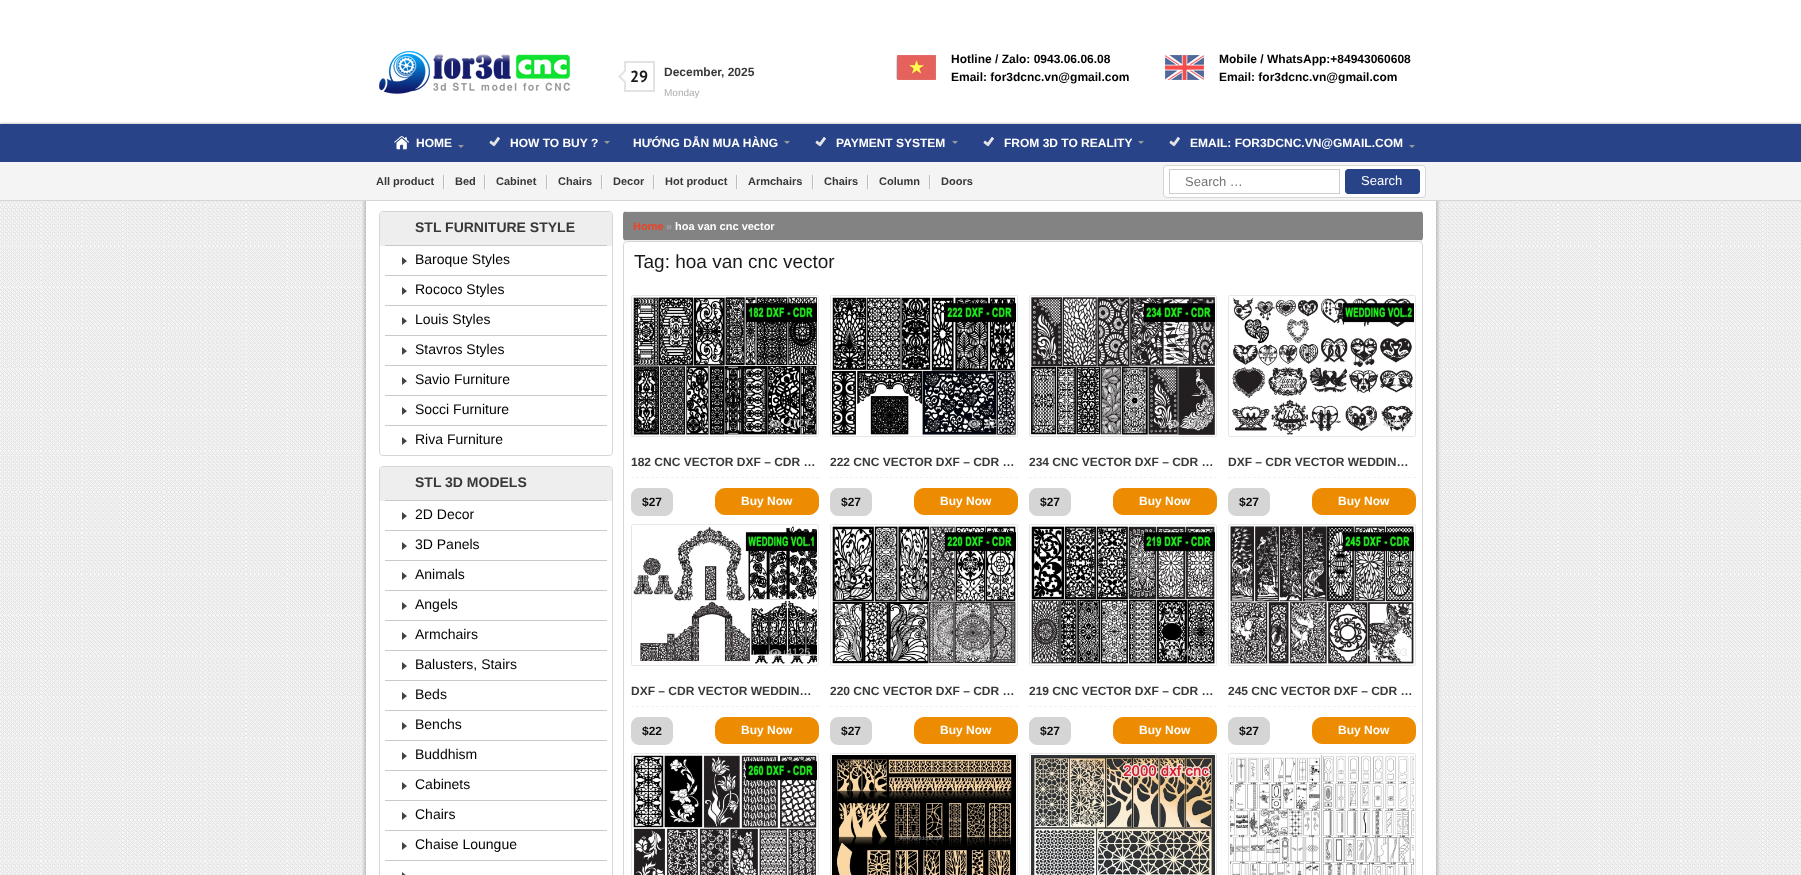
<!DOCTYPE html>
<meta charset="utf-8">
<style>body { margin: 0 } canvas { display: block }</style>
<canvas id="canvas" width="1801" height="875"></canvas>
<img id="img1" src="img_01.png" hidden>
<img id="img2" src="img_02.png" hidden>
<img id="img3" src="img_03.png" hidden>
<img id="img4" src="img_04.png" hidden>
<img id="img5" src="img_05.png" hidden>
<img id="img6" src="img_06.png" hidden>
<img id="img7" src="img_08.png" hidden>
<img id="img8" src="img_07.png" hidden>
<img id="img9" src="img_09.png" hidden>
<img id="img10" src="img_10.png" hidden>
<img id="img11" src="img_11.png" hidden>
<img id="img12" src="img_12.png" hidden>
<img id="img13" src="img_13.png" hidden>
<img id="img14" src="img_14.png" hidden>
<img id="img15" src="img_15.png" hidden>
<img id="img16" src="img_16.png" hidden>
<img id="img17" src="img_17.png" hidden>
<img id="img18" src="img_18.png" hidden>
<img id="img19" src="img_19.png" hidden>
<img id="img20" src="img_20.png" hidden>
<img id="img21" src="img_21.png" hidden>
<img id="img22" src="img_22.png" hidden>
<img id="img23" src="img_23.png" hidden>
<img id="img24" src="img_24.png" hidden>
<img id="img25" src="img_25.png" hidden>
<img id="img26" src="img_26.png" hidden>
<img id="img27" src="img_27.png" hidden>
<img id="img28" src="img_28.png" hidden>
<img id="img29" src="img_29.png" hidden>
<img id="img30" src="img_30.png" hidden>
<script>
window.onload = function () {
	const canvas = document.getElementById("canvas");
	const ctx = canvas.getContext("2d");
	ctx.miterLimit = 4;
	ctx.fontKerning = "normal";
	function txt(s, x, y) {
		ctx.fillText(s, x, y);
	}
	function fill(x, y, w, h) {
		ctx.fillRect(x, y, w, h);
	}
	function round(x, y, w, h, r) {
		ctx.beginPath();
		ctx.roundRect(x, y, w, h, r);
		ctx.fill();
	}
	function img(id, x, y, w, h) {
		ctx.drawImage(document.getElementById(id), x, y, w, h);
	}

	ctx.fillStyle = "#FFFFFF";
	fill(0, 0, 1801, 875);
	img("img1", 379, 51, 191, 43);
	img("img2", 618, 61, 37, 31);
	img("img3", 896, 55, 40, 25);
	img("img4", 1165, 55, 39, 25);
	ctx.fillStyle = "#A1A1A1";
	ctx.filter = "blur(1.5px)";
	ctx.beginPath();
	ctx.rect(0, 124, 1801, 38);
	ctx.fill();
	ctx.filter = "none";
	ctx.fillStyle = "#284388";
	fill(0, 124, 1801, 38);
	img("img5", 394, 136, 15, 14);
	ctx.fillStyle = "#999999";
	ctx.beginPath();
	ctx.moveTo(458, 145);
	ctx.lineTo(464, 145);
	ctx.lineTo(461, 148);
	ctx.closePath();
	ctx.fill();
	img("img6", 489, 136, 11, 11);
	ctx.beginPath();
	ctx.moveTo(604, 141);
	ctx.lineTo(610, 141);
	ctx.lineTo(607, 144);
	ctx.closePath();
	ctx.fill();
	ctx.beginPath();
	ctx.moveTo(784, 141);
	ctx.lineTo(790, 141);
	ctx.lineTo(787, 144);
	ctx.closePath();
	ctx.fill();
	img("img6", 815, 136, 11, 11);
	ctx.beginPath();
	ctx.moveTo(952, 141);
	ctx.lineTo(958, 141);
	ctx.lineTo(955, 144);
	ctx.closePath();
	ctx.fill();
	img("img6", 983, 136, 11, 11);
	ctx.beginPath();
	ctx.moveTo(1138, 141);
	ctx.lineTo(1144, 141);
	ctx.lineTo(1141, 144);
	ctx.closePath();
	ctx.fill();
	img("img6", 1169, 136, 11, 11);
	ctx.beginPath();
	ctx.moveTo(1409, 145);
	ctx.lineTo(1415, 145);
	ctx.lineTo(1412, 148);
	ctx.closePath();
	ctx.fill();
	img("img7", 0, 201, 1801, 674);
	ctx.fillStyle = "rgba(0, 0, 0, 0.2)";
	ctx.filter = "blur(1.5px)";
	ctx.beginPath();
	ctx.rect(364, 199, 1074, 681);
	ctx.fill();
	ctx.filter = "none";
	ctx.fillStyle = "#F4F4F4";
	fill(0, 162, 1801, 38);
	ctx.fillStyle = "#D6D6D6";
	fill(0, 200, 1801, 1);
	img("img8", 443, 175, 2, 14);
	img("img8", 484, 175, 2, 14);
	img("img8", 546, 175, 2, 14);
	img("img8", 601, 175, 2, 14);
	img("img8", 653, 175, 2, 14);
	img("img8", 736, 175, 2, 14);
	img("img8", 812, 175, 2, 14);
	img("img8", 867, 175, 2, 14);
	img("img8", 929, 175, 2, 14);
	ctx.fillStyle = "#FFFFFF";
	ctx.beginPath();
	ctx.roundRect(1163.5, 165.5, 262, 32, 3.5);
	ctx.fill();
	ctx.strokeStyle = "#D6D6D6";
	ctx.stroke();
	ctx.strokeStyle = "#CCCCCC";
	ctx.strokeRect(1169.5, 169.5, 170, 24);
	ctx.fillStyle = "#284388";
	round(1345, 169, 75, 25, 4);
	ctx.beginPath();
	ctx.moveTo(1349, 169);
	ctx.lineTo(1416, 169);
	ctx.bezierCurveTo(1418, 169, 1420, 171, 1420, 173);
	ctx.lineTo(1420, 190);
	ctx.bezierCurveTo(1420, 192, 1418, 194, 1416, 194);
	ctx.lineTo(1349, 194);
	ctx.bezierCurveTo(1347, 194, 1345, 192, 1345, 190);
	ctx.lineTo(1345, 173);
	ctx.bezierCurveTo(1345, 171, 1347, 169, 1349, 169);
	ctx.closePath();
	ctx.moveTo(1349, 170);
	ctx.lineTo(1416, 170);
	ctx.bezierCurveTo(1418, 170, 1419, 171, 1419, 173);
	ctx.lineTo(1419, 190);
	ctx.bezierCurveTo(1419, 192, 1418, 193, 1416, 193);
	ctx.lineTo(1349, 193);
	ctx.bezierCurveTo(1347, 193, 1345, 192, 1345, 190);
	ctx.lineTo(1345, 173);
	ctx.bezierCurveTo(1345, 171, 1347, 170, 1349, 170);
	ctx.closePath();
	ctx.fill("evenodd");
	ctx.fillStyle = "#FFFFFF";
	fill(366, 201, 1070, 674);
	ctx.beginPath();
	ctx.roundRect(379.5, 211.5, 233, 244, 3.5);
	ctx.strokeStyle = "#D6D6D6";
	ctx.stroke();
	ctx.fillStyle = "#EEEEEE";
	ctx.beginPath();
	ctx.roundRect(380, 212, 232, 34, [3, 3, 0, 0]);
	ctx.fill();
	ctx.fillStyle = "#C9C9C9";
	fill(385, 245, 222, 1);
	img("img9", 402, 257, 5, 8);
	fill(385, 275, 222, 1);
	img("img9", 402, 287, 5, 8);
	fill(385, 305, 222, 1);
	img("img9", 402, 317, 5, 8);
	fill(385, 335, 222, 1);
	img("img9", 402, 347, 5, 8);
	fill(385, 365, 222, 1);
	img("img9", 402, 377, 5, 8);
	fill(385, 395, 222, 1);
	img("img9", 402, 407, 5, 8);
	fill(385, 425, 222, 1);
	img("img9", 402, 437, 5, 8);
	ctx.beginPath();
	ctx.roundRect(379.5, 466.5, 233, 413, 3.5);
	ctx.stroke();
	ctx.fillStyle = "#EEEEEE";
	ctx.beginPath();
	ctx.roundRect(380, 467, 232, 34, [3, 3, 0, 0]);
	ctx.fill();
	ctx.fillStyle = "#C9C9C9";
	fill(385, 500, 222, 1);
	img("img9", 402, 512, 5, 8);
	fill(385, 530, 222, 1);
	img("img9", 402, 542, 5, 8);
	fill(385, 560, 222, 1);
	img("img9", 402, 572, 5, 8);
	fill(385, 590, 222, 1);
	img("img9", 402, 602, 5, 8);
	fill(385, 620, 222, 1);
	img("img9", 402, 632, 5, 8);
	fill(385, 650, 222, 1);
	img("img9", 402, 662, 5, 8);
	fill(385, 680, 222, 1);
	img("img9", 402, 692, 5, 8);
	fill(385, 710, 222, 1);
	img("img9", 402, 722, 5, 8);
	fill(385, 740, 222, 1);
	img("img9", 402, 752, 5, 8);
	fill(385, 770, 222, 1);
	img("img9", 402, 782, 5, 8);
	fill(385, 800, 222, 1);
	img("img9", 402, 812, 5, 8);
	fill(385, 830, 222, 1);
	img("img9", 402, 842, 5, 8);
	fill(385, 860, 222, 1);
	img("img10", 402, 872, 4, 3);
	ctx.fillStyle = "#838383";
	round(623, 211, 800, 30, 4);
	ctx.fillStyle = "#EFEFEF";
	fill(625, 211, 796, 1);
	fill(625, 240, 796, 1);
	ctx.beginPath();
	ctx.roundRect(623.5, 241.5, 799, 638, 3.5);
	ctx.stroke();
	ctx.beginPath();
	ctx.roundRect(631.5, 295.5, 187, 141, 1.5);
	ctx.strokeStyle = "#E7E7E7";
	ctx.stroke();
	img("img11", 633, 297, 184, 138);
	img("img12", 769, 420, 13, 8);
	ctx.beginPath();
	ctx.moveTo(631, 477.5);
	ctx.lineTo(819, 477.5);
	ctx.strokeStyle = "#F0F0F0";
	ctx.setLineDash([3, 2]);
	ctx.stroke();
	ctx.fillStyle = "#D5D5D5";
	ctx.beginPath();
	ctx.roundRect(631.5, 488.5, 41, 27, 7.5);
	ctx.fill();
	ctx.strokeStyle = "#D5D5D5";
	ctx.setLineDash([]);
	ctx.stroke();
	ctx.fillStyle = "#ED8C01";
	ctx.beginPath();
	ctx.roundRect(715.5, 488.5, 103, 26, 9.5);
	ctx.fill();
	ctx.strokeStyle = "#ED8C01";
	ctx.stroke();
	ctx.beginPath();
	ctx.roundRect(830.5, 295.5, 187, 141, 1.5);
	ctx.strokeStyle = "#E7E7E7";
	ctx.stroke();
	img("img13", 832, 297, 184, 138);
	img("img14", 968, 420, 13, 8);
	ctx.beginPath();
	ctx.moveTo(830, 477.5);
	ctx.lineTo(1018, 477.5);
	ctx.strokeStyle = "#F0F0F0";
	ctx.setLineDash([3, 2]);
	ctx.stroke();
	ctx.fillStyle = "#D5D5D5";
	ctx.beginPath();
	ctx.roundRect(830.5, 488.5, 41, 27, 7.5);
	ctx.fill();
	ctx.strokeStyle = "#D5D5D5";
	ctx.setLineDash([]);
	ctx.stroke();
	ctx.fillStyle = "#ED8C01";
	ctx.beginPath();
	ctx.roundRect(914.5, 488.5, 103, 26, 9.5);
	ctx.fill();
	ctx.strokeStyle = "#ED8C01";
	ctx.stroke();
	ctx.beginPath();
	ctx.roundRect(1029.5, 295.5, 187, 141, 1.5);
	ctx.strokeStyle = "#E7E7E7";
	ctx.stroke();
	img("img15", 1031, 297, 184, 138);
	img("img16", 1167, 420, 13, 8);
	ctx.beginPath();
	ctx.moveTo(1029, 477.5);
	ctx.lineTo(1217, 477.5);
	ctx.strokeStyle = "#F0F0F0";
	ctx.setLineDash([3, 2]);
	ctx.stroke();
	ctx.fillStyle = "#D5D5D5";
	ctx.beginPath();
	ctx.roundRect(1029.5, 488.5, 41, 27, 7.5);
	ctx.fill();
	ctx.strokeStyle = "#D5D5D5";
	ctx.setLineDash([]);
	ctx.stroke();
	ctx.fillStyle = "#ED8C01";
	ctx.beginPath();
	ctx.roundRect(1113.5, 488.5, 103, 26, 9.5);
	ctx.fill();
	ctx.strokeStyle = "#ED8C01";
	ctx.stroke();
	ctx.beginPath();
	ctx.roundRect(1228.5, 295.5, 187, 141, 1.5);
	ctx.strokeStyle = "#E7E7E7";
	ctx.stroke();
	img("img17", 1232, 297, 182, 138);
	img("img18", 1366, 420, 10, 7);
	ctx.beginPath();
	ctx.moveTo(1228, 477.5);
	ctx.lineTo(1416, 477.5);
	ctx.strokeStyle = "#F0F0F0";
	ctx.setLineDash([3, 2]);
	ctx.stroke();
	ctx.fillStyle = "#D5D5D5";
	ctx.beginPath();
	ctx.roundRect(1228.5, 488.5, 41, 27, 7.5);
	ctx.fill();
	ctx.strokeStyle = "#D5D5D5";
	ctx.setLineDash([]);
	ctx.stroke();
	ctx.fillStyle = "#ED8C01";
	ctx.beginPath();
	ctx.roundRect(1312.5, 488.5, 103, 26, 9.5);
	ctx.fill();
	ctx.strokeStyle = "#ED8C01";
	ctx.stroke();
	ctx.beginPath();
	ctx.roundRect(631.5, 524.5, 187, 141, 1.5);
	ctx.strokeStyle = "#E7E7E7";
	ctx.stroke();
	img("img19", 633, 526, 184, 138);
	img("img20", 769, 649, 13, 8);
	ctx.beginPath();
	ctx.moveTo(631, 706.5);
	ctx.lineTo(819, 706.5);
	ctx.strokeStyle = "#F0F0F0";
	ctx.setLineDash([3, 2]);
	ctx.stroke();
	ctx.fillStyle = "#D5D5D5";
	ctx.beginPath();
	ctx.roundRect(631.5, 717.5, 41, 27, 7.5);
	ctx.fill();
	ctx.strokeStyle = "#D5D5D5";
	ctx.setLineDash([]);
	ctx.stroke();
	ctx.fillStyle = "#ED8C01";
	ctx.beginPath();
	ctx.roundRect(715.5, 717.5, 103, 26, 9.5);
	ctx.fill();
	ctx.strokeStyle = "#ED8C01";
	ctx.stroke();
	ctx.beginPath();
	ctx.roundRect(830.5, 524.5, 187, 141, 1.5);
	ctx.strokeStyle = "#E7E7E7";
	ctx.stroke();
	img("img21", 832, 526, 184, 138);
	img("img22", 968, 649, 13, 8);
	ctx.beginPath();
	ctx.moveTo(830, 706.5);
	ctx.lineTo(1018, 706.5);
	ctx.strokeStyle = "#F0F0F0";
	ctx.setLineDash([3, 2]);
	ctx.stroke();
	ctx.fillStyle = "#D5D5D5";
	ctx.beginPath();
	ctx.roundRect(830.5, 717.5, 41, 27, 7.5);
	ctx.fill();
	ctx.strokeStyle = "#D5D5D5";
	ctx.setLineDash([]);
	ctx.stroke();
	ctx.fillStyle = "#ED8C01";
	ctx.beginPath();
	ctx.roundRect(914.5, 717.5, 103, 26, 9.5);
	ctx.fill();
	ctx.strokeStyle = "#ED8C01";
	ctx.stroke();
	ctx.beginPath();
	ctx.roundRect(1029.5, 524.5, 187, 141, 1.5);
	ctx.strokeStyle = "#E7E7E7";
	ctx.stroke();
	img("img23", 1031, 526, 184, 138);
	img("img24", 1167, 649, 13, 8);
	ctx.beginPath();
	ctx.moveTo(1029, 706.5);
	ctx.lineTo(1217, 706.5);
	ctx.strokeStyle = "#F0F0F0";
	ctx.setLineDash([3, 2]);
	ctx.stroke();
	ctx.fillStyle = "#D5D5D5";
	ctx.beginPath();
	ctx.roundRect(1029.5, 717.5, 41, 27, 7.5);
	ctx.fill();
	ctx.strokeStyle = "#D5D5D5";
	ctx.setLineDash([]);
	ctx.stroke();
	ctx.fillStyle = "#ED8C01";
	ctx.beginPath();
	ctx.roundRect(1113.5, 717.5, 103, 26, 9.5);
	ctx.fill();
	ctx.strokeStyle = "#ED8C01";
	ctx.stroke();
	ctx.beginPath();
	ctx.roundRect(1228.5, 524.5, 187, 141, 1.5);
	ctx.strokeStyle = "#E7E7E7";
	ctx.stroke();
	img("img25", 1230, 526, 184, 138);
	img("img26", 1366, 649, 13, 8);
	ctx.beginPath();
	ctx.moveTo(1228, 706.5);
	ctx.lineTo(1416, 706.5);
	ctx.strokeStyle = "#F0F0F0";
	ctx.setLineDash([3, 2]);
	ctx.stroke();
	ctx.fillStyle = "#D5D5D5";
	ctx.beginPath();
	ctx.roundRect(1228.5, 717.5, 41, 27, 7.5);
	ctx.fill();
	ctx.strokeStyle = "#D5D5D5";
	ctx.setLineDash([]);
	ctx.stroke();
	ctx.fillStyle = "#ED8C01";
	ctx.beginPath();
	ctx.roundRect(1312.5, 717.5, 103, 26, 9.5);
	ctx.fill();
	ctx.strokeStyle = "#ED8C01";
	ctx.stroke();
	ctx.beginPath();
	ctx.roundRect(631.5, 753.5, 187, 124, 1.5);
	ctx.strokeStyle = "#E7E7E7";
	ctx.stroke();
	img("img27", 633, 755, 184, 120);
	ctx.beginPath();
	ctx.roundRect(830.5, 753.5, 187, 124, 1.5);
	ctx.stroke();
	img("img28", 832, 755, 184, 120);
	ctx.beginPath();
	ctx.roundRect(1029.5, 753.5, 187, 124, 1.5);
	ctx.stroke();
	img("img29", 1031, 755, 184, 120);
	ctx.beginPath();
	ctx.roundRect(1228.5, 753.5, 187, 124, 1.5);
	ctx.stroke();
	img("img30", 1230, 755, 184, 120);
	ctx.font = "bold 16px PT Sans";
	ctx.fillStyle = "#1A1A1A";
	txt("29", 630, 82);
	ctx.font = "bold 12px Liberation Sans";
	ctx.fillStyle = "#383838";
	txt("December", 664, 76);
	txt(", 2025", 721, 76);
	ctx.font = "10px Liberation Sans";
	ctx.fillStyle = "#ADADAD";
	txt("Monday", 664, 96);
	ctx.font = "bold 12px Liberation Sans";
	ctx.fillStyle = "#000000";
	txt("Hotline / Zalo: 0943.06.06.08", 951, 63);
	txt("Email: for3dcnc.vn@gmail.com", 951, 81);
	txt("Mobile / WhatsApp:+84943060608", 1219, 63);
	txt("Email: for3dcnc.vn@gmail.com", 1219, 81);
	ctx.fillStyle = "#FFFFFF";
	txt("HOME", 416, 147);
	txt("HOW TO BUY ?", 510, 147);
	txt("HƯỚNG DẪN MUA HÀNG", 633, 147);
	txt("PAYMENT SYSTEM", 836, 147);
	txt("FROM 3D TO REALITY", 1004, 147);
	txt("EMAIL: FOR3DCNC.VN@GMAIL.COM", 1190, 147);
	ctx.font = "bold 11px Liberation Sans";
	ctx.fillStyle = "#383838";
	txt("All product", 376, 185);
	txt("Bed", 455, 185);
	txt("Cabinet", 496, 185);
	txt("Chairs", 558, 185);
	txt("Decor", 613, 185);
	txt("Hot product", 665, 185);
	txt("Armchairs", 748, 185);
	txt("Chairs", 824, 185);
	txt("Column", 879, 185);
	txt("Doors", 941, 185);
	ctx.font = "13px Liberation Sans";
	ctx.fillStyle = "#757575";
	txt("Search …", 1185, 186);
	ctx.fillStyle = "#FFFFFF";
	txt("Search", 1361, 185);
	ctx.font = "bold 14px Liberation Sans";
	ctx.fillStyle = "#383838";
	txt("STL FURNITURE STYLE", 415, 232);
	ctx.font = "14px Liberation Sans";
	ctx.fillStyle = "#000000";
	txt("Baroque Styles", 415, 264);
	txt("Rococo Styles", 415, 294);
	txt("Louis Styles", 415, 324);
	txt("Stavros Styles", 415, 354);
	txt("Savio Furniture", 415, 384);
	txt("Socci Furniture", 415, 414);
	txt("Riva Furniture", 415, 444);
	ctx.font = "bold 14px Liberation Sans";
	ctx.fillStyle = "#383838";
	txt("STL 3D MODELS", 415, 487);
	ctx.font = "14px Liberation Sans";
	ctx.fillStyle = "#000000";
	txt("2D Decor", 415, 519);
	txt("3D Panels", 415, 549);
	txt("Animals", 415, 579);
	txt("Angels", 415, 609);
	txt("Armchairs", 415, 639);
	txt("Balusters, Stairs", 415, 669);
	txt("Beds", 415, 699);
	txt("Benchs", 415, 729);
	txt("Buddhism", 415, 759);
	txt("Cabinets", 415, 789);
	txt("Chairs", 415, 819);
	txt("Chaise Loungue", 415, 849);
	ctx.font = "bold 11px Liberation Sans";
	ctx.fillStyle = "#F24024";
	txt("Home", 633, 230);
	ctx.fillStyle = "#A5A5A5";
	txt("»", 666, 230);
	ctx.fillStyle = "#FFFFFF";
	txt("hoa van cnc vector", 675, 230);
	ctx.font = "19px Liberation Sans";
	ctx.fillStyle = "#1A1A1A";
	txt("Tag: hoa van cnc vector", 634, 268);
	ctx.font = "11px Liberation Sans";
	ctx.fillStyle = "#B7B7B7";
	txt("4727", 786, 427);
	ctx.font = "bold 12px Liberation Sans";
	ctx.fillStyle = "#383838";
	txt("182 CNC VECTOR DXF – CDR …", 631, 466);
	ctx.fillStyle = "#0A0A0A";
	txt("$27", 642, 506);
	ctx.fillStyle = "#FFFFFF";
	txt("Buy Now", 741, 505);
	ctx.font = "11px Liberation Sans";
	ctx.fillStyle = "#B7B7B7";
	txt("4207", 985, 427);
	ctx.font = "bold 12px Liberation Sans";
	ctx.fillStyle = "#383838";
	txt("222 CNC VECTOR DXF – CDR …", 830, 466);
	ctx.fillStyle = "#0A0A0A";
	txt("$27", 841, 506);
	ctx.fillStyle = "#FFFFFF";
	txt("Buy Now", 940, 505);
	ctx.font = "11px Liberation Sans";
	ctx.fillStyle = "#D2D1D1";
	txt("7429", 1184, 427);
	ctx.font = "bold 12px Liberation Sans";
	ctx.fillStyle = "#383838";
	txt("234 CNC VECTOR DXF – CDR …", 1029, 466);
	ctx.fillStyle = "#0A0A0A";
	txt("$27", 1040, 506);
	ctx.fillStyle = "#FFFFFF";
	txt("Buy Now", 1139, 505);
	ctx.font = "11px Liberation Sans";
	ctx.fillStyle = "#D2D1D1";
	txt("4856", 1383, 427);
	ctx.font = "bold 12px Liberation Sans";
	ctx.fillStyle = "#383838";
	txt("DXF – CDR VECTOR WEDDIN…", 1228, 466);
	ctx.fillStyle = "#0A0A0A";
	txt("$27", 1239, 506);
	ctx.fillStyle = "#FFFFFF";
	txt("Buy Now", 1338, 505);
	ctx.font = "11px Liberation Sans";
	ctx.fillStyle = "#B7B7B7";
	txt("4125", 786, 656);
	ctx.font = "bold 12px Liberation Sans";
	ctx.fillStyle = "#383838";
	txt("DXF – CDR VECTOR WEDDIN…", 631, 695);
	ctx.fillStyle = "#0A0A0A";
	txt("$22", 642, 735);
	ctx.fillStyle = "#FFFFFF";
	txt("Buy Now", 741, 734);
	ctx.font = "11px Liberation Sans";
	ctx.fillStyle = "#D2D1D1";
	txt("4767", 985, 656);
	ctx.font = "bold 12px Liberation Sans";
	ctx.fillStyle = "#383838";
	txt("220 CNC VECTOR DXF – CDR …", 830, 695);
	ctx.fillStyle = "#0A0A0A";
	txt("$27", 841, 735);
	ctx.fillStyle = "#FFFFFF";
	txt("Buy Now", 940, 734);
	ctx.font = "11px Liberation Sans";
	ctx.fillStyle = "#B7B7B7";
	txt("4020", 1184, 656);
	ctx.font = "bold 12px Liberation Sans";
	ctx.fillStyle = "#383838";
	txt("219 CNC VECTOR DXF – CDR …", 1029, 695);
	ctx.fillStyle = "#0A0A0A";
	txt("$27", 1040, 735);
	ctx.fillStyle = "#FFFFFF";
	txt("Buy Now", 1139, 734);
	ctx.font = "11px Liberation Sans";
	ctx.fillStyle = "#E6E6E6";
	txt("5393", 1383, 656);
	ctx.font = "bold 12px Liberation Sans";
	ctx.fillStyle = "#383838";
	txt("245 CNC VECTOR DXF – CDR …", 1228, 695);
	ctx.fillStyle = "#0A0A0A";
	txt("$27", 1239, 735);
	ctx.fillStyle = "#FFFFFF";
	txt("Buy Now", 1338, 734);
};
</script>
